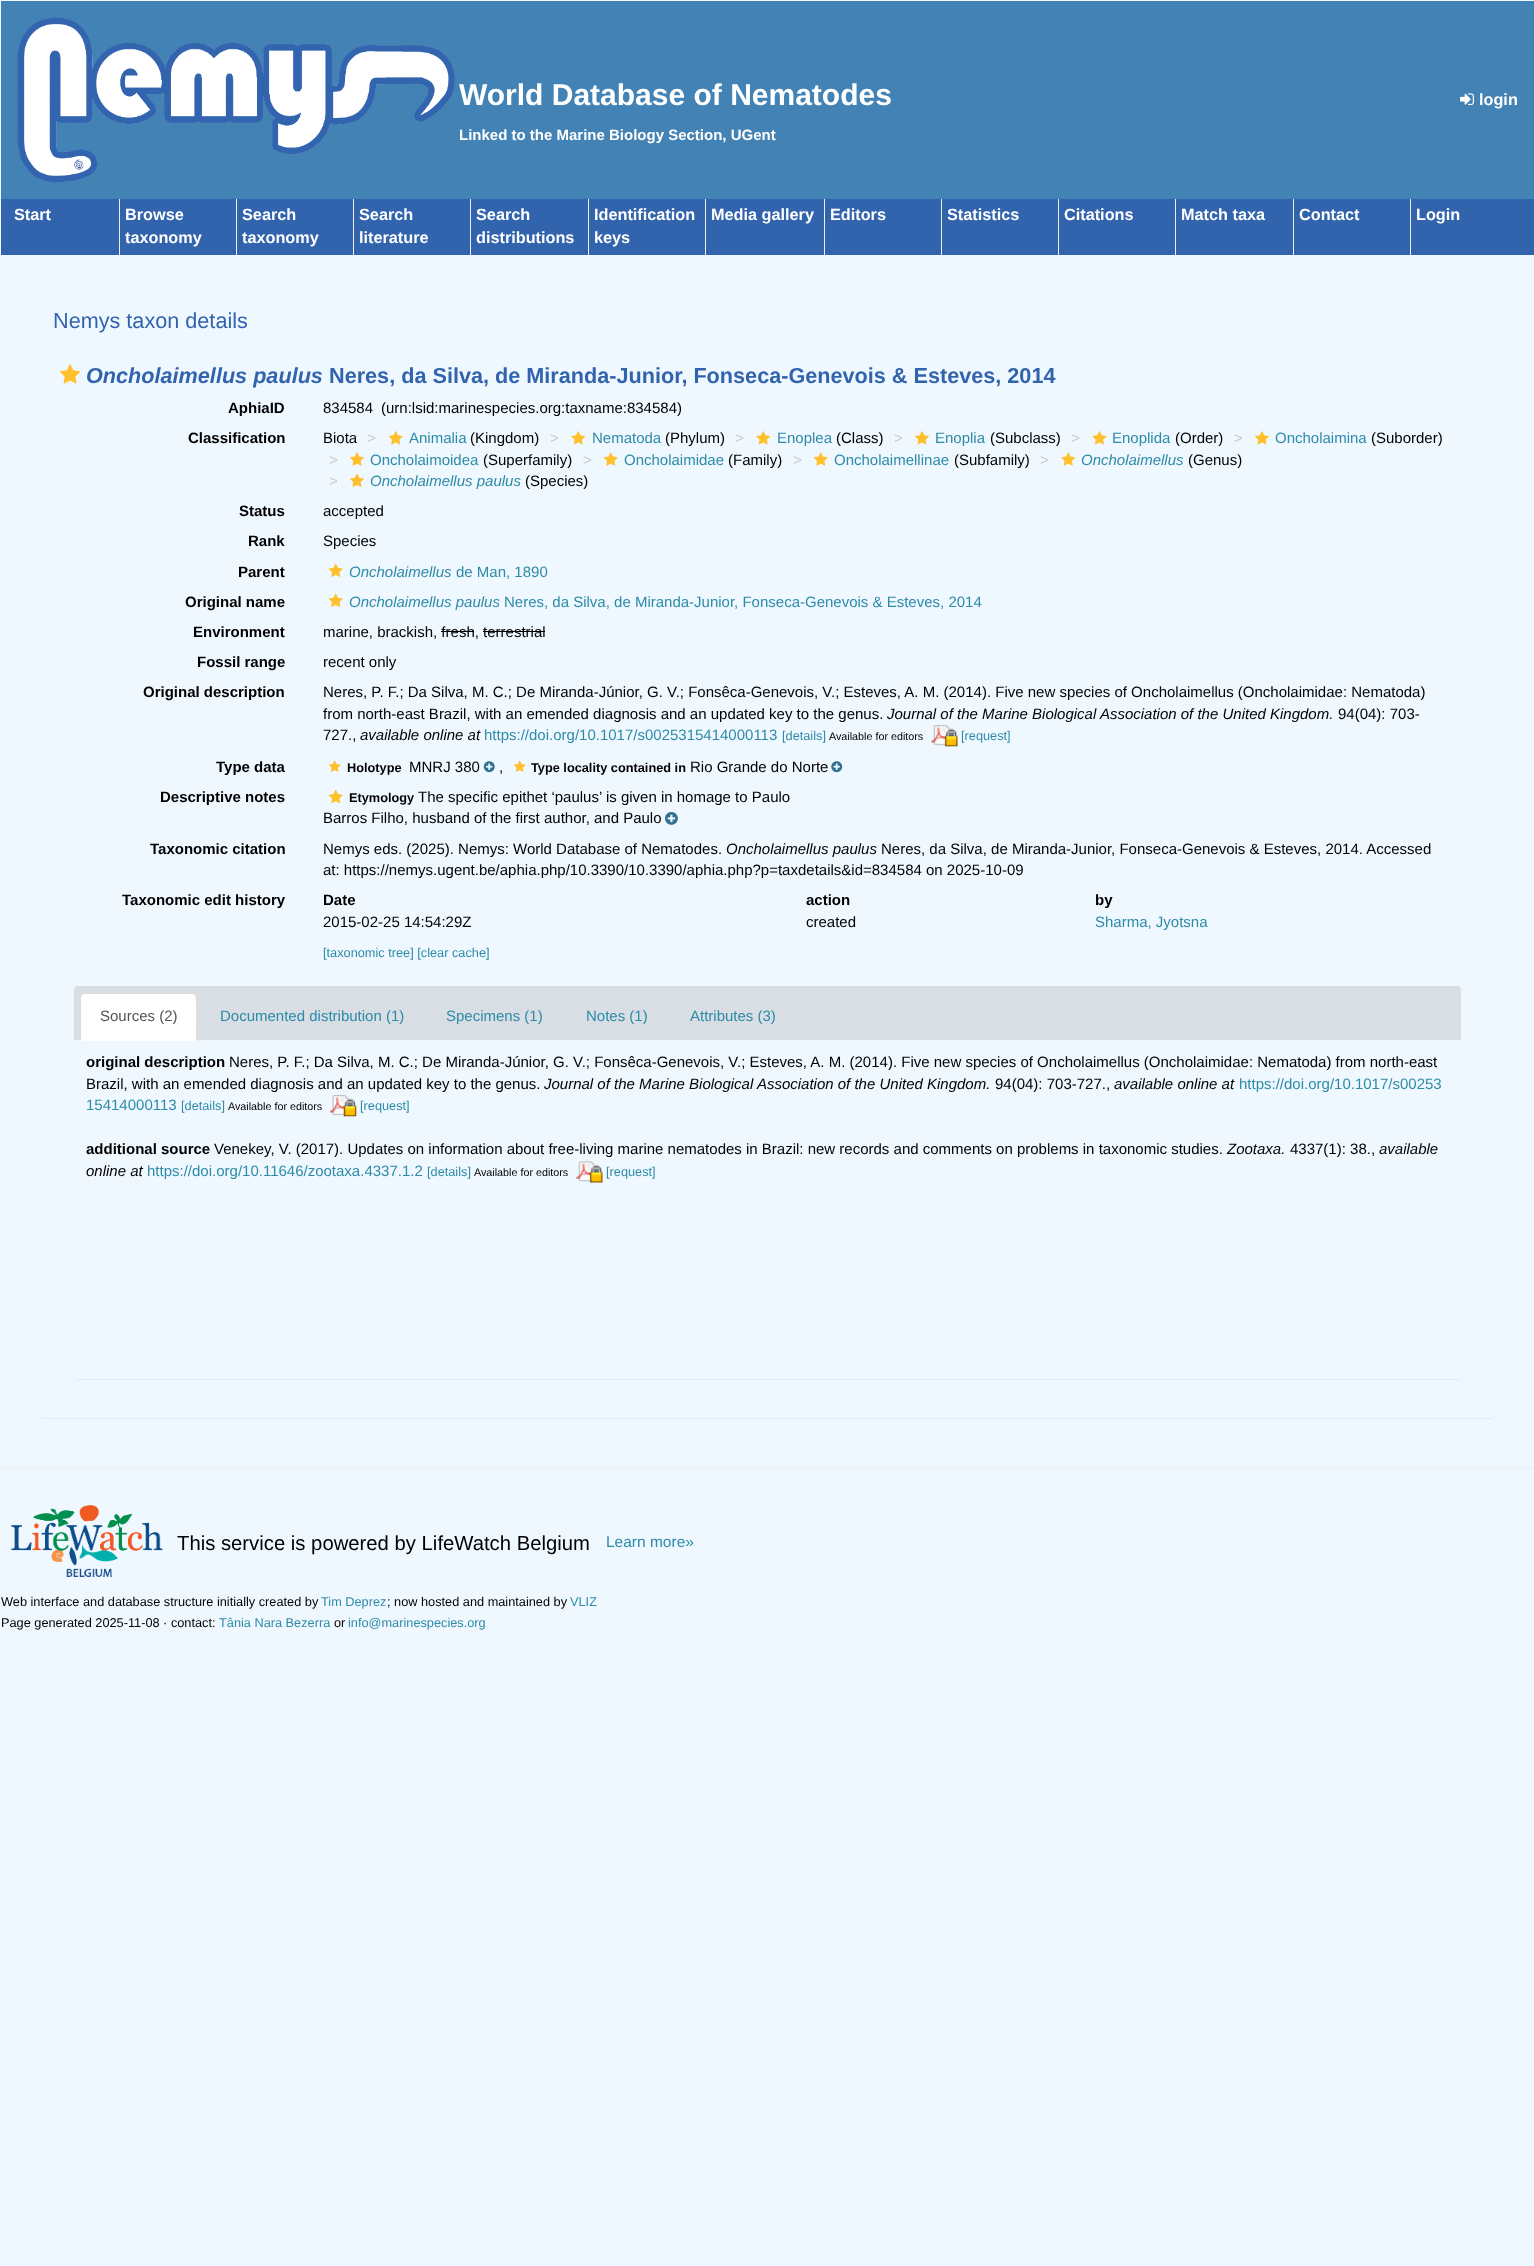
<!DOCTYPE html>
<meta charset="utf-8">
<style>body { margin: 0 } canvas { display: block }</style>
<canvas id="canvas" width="1534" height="2266"></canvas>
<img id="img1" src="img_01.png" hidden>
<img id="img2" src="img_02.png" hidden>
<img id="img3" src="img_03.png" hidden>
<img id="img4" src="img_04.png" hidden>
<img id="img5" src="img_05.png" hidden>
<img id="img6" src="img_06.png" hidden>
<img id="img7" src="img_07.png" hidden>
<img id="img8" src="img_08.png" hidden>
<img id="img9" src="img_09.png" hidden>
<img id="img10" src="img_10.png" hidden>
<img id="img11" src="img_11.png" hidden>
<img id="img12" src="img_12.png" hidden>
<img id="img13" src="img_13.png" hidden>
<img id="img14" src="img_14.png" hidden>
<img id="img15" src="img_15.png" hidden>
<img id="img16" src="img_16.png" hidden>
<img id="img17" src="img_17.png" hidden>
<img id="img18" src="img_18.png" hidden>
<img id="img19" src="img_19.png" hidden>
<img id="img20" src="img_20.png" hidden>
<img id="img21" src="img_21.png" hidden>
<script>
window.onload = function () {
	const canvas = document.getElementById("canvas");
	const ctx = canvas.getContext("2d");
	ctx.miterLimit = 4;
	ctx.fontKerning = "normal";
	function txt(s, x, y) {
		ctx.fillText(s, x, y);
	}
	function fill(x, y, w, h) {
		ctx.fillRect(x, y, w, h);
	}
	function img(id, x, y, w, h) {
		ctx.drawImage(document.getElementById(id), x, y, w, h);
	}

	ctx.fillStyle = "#F0F8FF";
	fill(0, 0, 1534, 2266);
	ctx.fillStyle = "#4382B4";
	fill(1, 1, 1533, 198);
	img("img1", 17, 17, 438, 166);
	img("img2", 1460, 93, 14, 12);
	ctx.fillStyle = "#3264AE";
	fill(1, 199, 1533, 56);
	ctx.fillStyle = "#EEEEEE";
	fill(119, 199, 1, 56);
	fill(236, 199, 1, 56);
	fill(353, 199, 1, 56);
	fill(470, 199, 1, 56);
	fill(588, 199, 1, 56);
	fill(705, 199, 1, 56);
	fill(824, 199, 1, 56);
	fill(941, 199, 1, 56);
	fill(1058, 199, 1, 56);
	fill(1175, 199, 1, 56);
	fill(1293, 199, 1, 56);
	fill(1410, 199, 1, 56);
	ctx.save();
	ctx.beginPath();
	ctx.moveTo(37, 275);
	ctx.lineTo(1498, 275);
	ctx.lineTo(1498, 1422);
	ctx.lineTo(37, 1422);
	ctx.closePath();
	ctx.moveTo(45, 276);
	ctx.lineTo(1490, 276);
	ctx.bezierCurveTo(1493, 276, 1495, 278, 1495, 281);
	ctx.lineTo(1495, 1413);
	ctx.bezierCurveTo(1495, 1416, 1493, 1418, 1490, 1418);
	ctx.lineTo(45, 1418);
	ctx.bezierCurveTo(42, 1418, 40, 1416, 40, 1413);
	ctx.lineTo(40, 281);
	ctx.bezierCurveTo(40, 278, 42, 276, 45, 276);
	ctx.closePath();
	ctx.clip("evenodd");
	ctx.fillStyle = "rgba(0, 0, 0, 0.05)";
	ctx.filter = "blur(0.5px)";
	ctx.beginPath();
	ctx.roundRect(40, 278, 1455, 1141, 5);
	ctx.fill();
	ctx.filter = "none";
	ctx.restore();
	img("img3", 60, 364, 21, 20);
	img("img4", 388, 431, 15, 14);
	img("img5", 571, 431, 15, 14);
	img("img5", 756, 431, 15, 14);
	img("img6", 915, 431, 14, 14);
	img("img7", 1092, 431, 15, 14);
	img("img6", 1255, 431, 14, 14);
	img("img8", 350, 452, 14, 14);
	img("img9", 603, 452, 15, 14);
	img("img9", 813, 452, 15, 14);
	img("img10", 1061, 452, 15, 14);
	img("img11", 350, 473, 14, 14);
	img("img12", 328, 563, 15, 14);
	img("img12", 328, 593, 15, 14);
	ctx.fillStyle = "#000000";
	fill(441, 631, 33, 1);
	fill(483, 631, 62, 1);
	img("img13", 931, 725, 27, 22);
	img("img14", 328, 760, 13, 12);
	img("img15", 483, 761, 12, 12);
	img("img14", 513, 760, 13, 12);
	img("img16", 831, 761, 12, 12);
	img("img17", 328, 790, 15, 14);
	img("img18", 665, 812, 13, 13);
	ctx.save();
	ctx.beginPath();
	ctx.moveTo(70, 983);
	ctx.lineTo(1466, 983);
	ctx.lineTo(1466, 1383);
	ctx.lineTo(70, 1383);
	ctx.closePath();
	ctx.moveTo(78, 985);
	ctx.lineTo(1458, 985);
	ctx.bezierCurveTo(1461, 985, 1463, 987, 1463, 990);
	ctx.lineTo(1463, 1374);
	ctx.bezierCurveTo(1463, 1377, 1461, 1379, 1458, 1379);
	ctx.lineTo(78, 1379);
	ctx.bezierCurveTo(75, 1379, 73, 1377, 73, 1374);
	ctx.lineTo(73, 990);
	ctx.bezierCurveTo(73, 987, 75, 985, 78, 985);
	ctx.closePath();
	ctx.clip("evenodd");
	ctx.fillStyle = "rgba(0, 0, 0, 0.05)";
	ctx.filter = "blur(0.5px)";
	ctx.beginPath();
	ctx.roundRect(73, 986, 1390, 394, 5);
	ctx.fill();
	ctx.filter = "none";
	ctx.restore();
	ctx.fillStyle = "#D8DEE4";
	ctx.beginPath();
	ctx.roundRect(74, 986, 1387, 54, [4, 4, 0, 0]);
	ctx.fill();
	ctx.fillStyle = "#FFFFFF";
	ctx.beginPath();
	ctx.roundRect(80, 993, 118, 48, [5, 5, 0, 0]);
	ctx.fill();
	ctx.fillStyle = "#DDDDDD";
	ctx.beginPath();
	ctx.moveTo(85, 994);
	ctx.lineTo(82, 995);
	ctx.lineTo(81, 994);
	ctx.bezierCurveTo(86, 988, 100, 992, 102, 992);
	ctx.lineTo(194, 992);
	ctx.lineTo(196, 994);
	ctx.lineTo(195, 995);
	ctx.lineTo(192, 994);
	ctx.closePath();
	ctx.fill();
	ctx.beginPath();
	ctx.moveTo(198, 1041);
	ctx.lineTo(196, 1040);
	ctx.bezierCurveTo(196, 1034, 197, 997, 195, 995);
	ctx.lineTo(196, 994);
	ctx.lineTo(198, 996);
	ctx.closePath();
	ctx.fill();
	ctx.beginPath();
	ctx.moveTo(80, 998);
	ctx.lineTo(80, 1041);
	ctx.lineTo(81, 1040);
	ctx.lineTo(81, 998);
	ctx.bezierCurveTo(81, 996, 82, 995, 82, 995);
	ctx.lineTo(81, 994);
	ctx.bezierCurveTo(80, 995, 80, 996, 80, 998);
	ctx.closePath();
	ctx.fill();
	img("img19", 330, 1095, 27, 22);
	img("img20", 576, 1161, 27, 22);
	ctx.fillStyle = "#EEEEEE";
	fill(1, 1468, 1533, 1);
	img("img21", 11, 1505, 152, 72);
	ctx.font = "bold 30px Liberation Sans";
	ctx.fillStyle = "#FFFFFF";
	txt("World Database of Nematodes", 459, 105);
	ctx.font = "bold 15px Liberation Sans";
	txt("Linked to the Marine Biology Section, UGent", 459, 140);
	ctx.font = "bold 16.25px Liberation Sans";
	txt("login", 1479, 105);
	txt("Start", 14, 220);
	txt("Browse", 125, 220);
	txt("taxonomy", 125, 243);
	txt("Search", 242, 220);
	txt("taxonomy", 242, 243);
	txt("Search", 359, 220);
	txt("literature", 359, 243);
	txt("Search", 476, 220);
	txt("distributions", 476, 243);
	txt("Identification", 594, 220);
	txt("keys", 594, 243);
	txt("Media gallery", 711, 220);
	txt("Editors", 830, 220);
	txt("Statistics", 947, 220);
	txt("Citations", 1064, 220);
	txt("Match taxa", 1181, 220);
	txt("Contact", 1299, 220);
	txt("Login", 1416, 220);
	ctx.font = "21.65px Liberation Sans";
	ctx.fillStyle = "#3264AE";
	txt("Nemys taxon details", 53, 328);
	ctx.font = "italic bold 21.65px Liberation Sans";
	txt("Oncholaimellus paulus", 86, 383);
	ctx.font = "bold 21.65px Liberation Sans";
	txt("Neres, da Silva, de Miranda-Junior, Fonseca-Genevois & Esteves, 2014", 329, 383);
	ctx.font = "bold 15px Liberation Sans";
	ctx.fillStyle = "#000000";
	txt("AphiaID", 228, 413);
	ctx.font = "15px Liberation Sans";
	txt("834584", 323, 413);
	txt("(urn:lsid:marinespecies.org:taxname:834584)", 381, 413);
	ctx.font = "bold 15px Liberation Sans";
	txt("Classification", 188, 443);
	ctx.font = "15px Liberation Sans";
	txt("Biota", 323, 443);
	ctx.fillStyle = "#CCCCCC";
	txt(">", 367, 443);
	ctx.fillStyle = "#2D8BA8";
	txt("Animalia", 409, 443);
	ctx.fillStyle = "#000000";
	txt("(Kingdom)", 470, 443);
	ctx.fillStyle = "#CCCCCC";
	txt(">", 550, 443);
	ctx.fillStyle = "#2D8BA8";
	txt("Nematoda", 592, 443);
	ctx.fillStyle = "#000000";
	txt("(Phylum)", 665, 443);
	ctx.fillStyle = "#CCCCCC";
	txt(">", 735, 443);
	ctx.fillStyle = "#2D8BA8";
	txt("Enoplea", 777, 443);
	ctx.fillStyle = "#000000";
	txt("(Class)", 836, 443);
	ctx.fillStyle = "#CCCCCC";
	txt(">", 894, 443);
	ctx.fillStyle = "#2D8BA8";
	txt("Enoplia", 935, 443);
	ctx.fillStyle = "#000000";
	txt("(Subclass)", 990, 443);
	ctx.fillStyle = "#CCCCCC";
	txt(">", 1071, 443);
	ctx.fillStyle = "#2D8BA8";
	txt("Enoplida", 1112, 443);
	ctx.fillStyle = "#000000";
	txt("(Order)", 1175, 443);
	ctx.fillStyle = "#CCCCCC";
	txt(">", 1234, 443);
	ctx.fillStyle = "#2D8BA8";
	txt("Oncholaimina", 1275, 443);
	ctx.fillStyle = "#000000";
	txt("(Suborder)", 1371, 443);
	ctx.fillStyle = "#CCCCCC";
	txt(">", 329, 465);
	ctx.fillStyle = "#2D8BA8";
	txt("Oncholaimoidea", 370, 465);
	ctx.fillStyle = "#000000";
	txt("(Superfamily)", 483, 465);
	ctx.fillStyle = "#CCCCCC";
	txt(">", 583, 465);
	ctx.fillStyle = "#2D8BA8";
	txt("Oncholaimidae", 624, 465);
	ctx.fillStyle = "#000000";
	txt("(Family)", 728, 465);
	ctx.fillStyle = "#CCCCCC";
	txt(">", 793, 465);
	ctx.fillStyle = "#2D8BA8";
	txt("Oncholaimellinae", 834, 465);
	ctx.fillStyle = "#000000";
	txt("(Subfamily)", 954, 465);
	ctx.fillStyle = "#CCCCCC";
	txt(">", 1040, 465);
	ctx.font = "italic 15px Liberation Sans";
	ctx.fillStyle = "#2D8BA8";
	txt("Oncholaimellus", 1081, 465);
	ctx.font = "15px Liberation Sans";
	ctx.fillStyle = "#000000";
	txt("(Genus)", 1188, 465);
	ctx.fillStyle = "#CCCCCC";
	txt(">", 329, 486);
	ctx.font = "italic 15px Liberation Sans";
	ctx.fillStyle = "#2D8BA8";
	txt("Oncholaimellus paulus", 370, 486);
	ctx.font = "15px Liberation Sans";
	ctx.fillStyle = "#000000";
	txt("(Species)", 525, 486);
	ctx.font = "bold 15px Liberation Sans";
	txt("Status", 239, 516);
	ctx.font = "15px Liberation Sans";
	txt("accepted", 323, 516);
	ctx.font = "bold 15px Liberation Sans";
	txt("Rank", 248, 546);
	ctx.font = "15px Liberation Sans";
	txt("Species", 323, 546);
	ctx.font = "bold 15px Liberation Sans";
	txt("Parent", 238, 577);
	ctx.font = "italic 15px Liberation Sans";
	ctx.fillStyle = "#2D8BA8";
	txt("Oncholaimellus", 349, 577);
	ctx.font = "15px Liberation Sans";
	txt("de Man, 1890", 456, 577);
	ctx.font = "bold 15px Liberation Sans";
	ctx.fillStyle = "#000000";
	txt("Original name", 185, 607);
	ctx.font = "italic 15px Liberation Sans";
	ctx.fillStyle = "#2D8BA8";
	txt("Oncholaimellus paulus", 349, 607);
	ctx.font = "15px Liberation Sans";
	txt("Neres, da Silva, de Miranda-Junior, Fonseca-Genevois & Esteves, 2014", 504, 607);
	ctx.font = "bold 15px Liberation Sans";
	ctx.fillStyle = "#000000";
	txt("Environment", 193, 637);
	ctx.font = "15px Liberation Sans";
	txt("marine, brackish, fresh, terrestrial", 323, 637);
	ctx.font = "bold 15px Liberation Sans";
	txt("Fossil range", 197, 667);
	ctx.font = "15px Liberation Sans";
	txt("recent only", 323, 667);
	ctx.font = "bold 15px Liberation Sans";
	txt("Original description", 143, 697);
	ctx.font = "15px Liberation Sans";
	txt("Neres, P. F.; Da Silva, M. C.; De Miranda-Júnior, G. V.; Fonsêca-Genevois, V.; Esteves, A. M. (2014). Five new species of Oncholaimellus (Oncholaimidae: Nematoda)", 323, 697);
	txt("from north-east Brazil, with an emended diagnosis and an updated key to the genus.", 323, 719);
	ctx.font = "italic 15px Liberation Sans";
	txt("Journal of the Marine Biological Association of the United Kingdom.", 887, 719);
	ctx.font = "15px Liberation Sans";
	txt("94(04): 703-", 1338, 719);
	txt("727.,", 323, 740);
	ctx.font = "italic 15px Liberation Sans";
	txt("available online at", 360, 740);
	ctx.font = "15px Liberation Sans";
	ctx.fillStyle = "#2D8BA8";
	txt("https://doi.org/10.1017/s0025315414000113", 484, 740);
	ctx.font = "12.75px Liberation Sans";
	txt("[details]", 782, 740);
	ctx.font = "10.75px Liberation Sans";
	ctx.fillStyle = "#000000";
	txt("Available for editors", 829, 740);
	ctx.font = "12.75px Liberation Sans";
	ctx.fillStyle = "#2D8BA8";
	txt("[request]", 961, 740);
	ctx.font = "bold 15px Liberation Sans";
	ctx.fillStyle = "#000000";
	txt("Type data", 216, 772);
	ctx.font = "bold 12.75px Liberation Sans";
	txt("Holotype", 347, 772);
	ctx.font = "15px Liberation Sans";
	txt("MNRJ 380", 409, 772);
	txt(",", 499, 772);
	ctx.font = "bold 12.75px Liberation Sans";
	txt("Type locality contained in", 531, 772);
	ctx.font = "15px Liberation Sans";
	txt("Rio Grande do Norte", 690, 772);
	ctx.font = "bold 15px Liberation Sans";
	txt("Descriptive notes", 160, 802);
	ctx.font = "bold 12.75px Liberation Sans";
	txt("Etymology", 349, 802);
	ctx.font = "15px Liberation Sans";
	txt("The specific epithet ‘paulus’ is given in homage to Paulo", 418, 802);
	txt("Barros Filho, husband of the first author, and Paulo", 323, 823);
	ctx.font = "bold 15px Liberation Sans";
	txt("Taxonomic citation", 150, 854);
	ctx.font = "15px Liberation Sans";
	txt("Nemys eds. (2025). Nemys: World Database of Nematodes.", 323, 854);
	ctx.font = "italic 15px Liberation Sans";
	txt("Oncholaimellus paulus", 726, 854);
	ctx.font = "15px Liberation Sans";
	txt("Neres, da Silva, de Miranda-Junior, Fonseca-Genevois & Esteves, 2014. Accessed", 881, 854);
	txt("at: https://nemys.ugent.be/aphia.php/10.3390/10.3390/aphia.php?p=taxdetails&id=834584 on 2025-10-09", 323, 875);
	ctx.font = "bold 15px Liberation Sans";
	txt("Taxonomic edit history", 122, 905);
	txt("Date", 323, 905);
	txt("action", 806, 905);
	txt("by", 1095, 905);
	ctx.font = "15px Liberation Sans";
	txt("2015-02-25 14:54:29Z", 323, 927);
	txt("created", 806, 927);
	ctx.fillStyle = "#2D8BA8";
	txt("Sharma, Jyotsna", 1095, 927);
	ctx.font = "12.75px Liberation Sans";
	txt("[taxonomic tree] [clear cache]", 323, 957);
	ctx.font = "15px Liberation Sans";
	ctx.fillStyle = "#555555";
	txt("Sources (2)", 100, 1021);
	ctx.fillStyle = "#2D8BA8";
	txt("Documented distribution (1)", 220, 1021);
	txt("Specimens (1)", 446, 1021);
	txt("Notes (1)", 586, 1021);
	txt("Attributes (3)", 690, 1021);
	ctx.font = "bold 15px Liberation Sans";
	ctx.fillStyle = "#000000";
	txt("original description", 86, 1067);
	ctx.font = "15px Liberation Sans";
	txt("Neres, P. F.; Da Silva, M. C.; De Miranda-Júnior, G. V.; Fonsêca-Genevois, V.; Esteves, A. M. (2014). Five new species of Oncholaimellus (Oncholaimidae: Nematoda) from north-east", 229, 1067);
	txt("Brazil, with an emended diagnosis and an updated key to the genus.", 86, 1089);
	ctx.font = "italic 15px Liberation Sans";
	txt("Journal of the Marine Biological Association of the United Kingdom.", 544, 1089);
	ctx.font = "15px Liberation Sans";
	txt("94(04): 703-727.,", 995, 1089);
	ctx.font = "italic 15px Liberation Sans";
	txt("available online at", 1114, 1089);
	ctx.font = "15px Liberation Sans";
	ctx.fillStyle = "#2D8BA8";
	txt("https://doi.org/10.1017/s00253", 1239, 1089);
	txt("15414000113", 86, 1110);
	ctx.font = "12.75px Liberation Sans";
	txt("[details]", 181, 1110);
	ctx.font = "10.75px Liberation Sans";
	ctx.fillStyle = "#000000";
	txt("Available for editors", 228, 1110);
	ctx.font = "12.75px Liberation Sans";
	ctx.fillStyle = "#2D8BA8";
	txt("[request]", 360, 1110);
	ctx.font = "bold 15px Liberation Sans";
	ctx.fillStyle = "#000000";
	txt("additional source", 86, 1154);
	ctx.font = "15px Liberation Sans";
	txt("Venekey, V. (2017). Updates on information about free-living marine nematodes in Brazil: new records and comments on problems in taxonomic studies.", 214, 1154);
	ctx.font = "italic 15px Liberation Sans";
	txt("Zootaxa.", 1227, 1154);
	ctx.font = "15px Liberation Sans";
	txt("4337(1): 38.,", 1290, 1154);
	ctx.font = "italic 15px Liberation Sans";
	txt("available", 1379, 1154);
	txt("online at", 86, 1176);
	ctx.font = "15px Liberation Sans";
	ctx.fillStyle = "#2D8BA8";
	txt("https://doi.org/10.11646/zootaxa.4337.1.2", 147, 1176);
	ctx.font = "12.75px Liberation Sans";
	txt("[details]", 427, 1176);
	ctx.font = "10.75px Liberation Sans";
	ctx.fillStyle = "#000000";
	txt("Available for editors", 474, 1176);
	ctx.font = "12.75px Liberation Sans";
	ctx.fillStyle = "#2D8BA8";
	txt("[request]", 606, 1176);
	ctx.font = "20.3px Liberation Sans";
	ctx.fillStyle = "#000000";
	txt("This service is powered by LifeWatch Belgium", 177, 1550);
	ctx.font = "15.5px Liberation Sans";
	ctx.fillStyle = "#2D8BA8";
	txt("Learn more»", 606, 1547);
	ctx.font = "12.75px Liberation Sans";
	ctx.fillStyle = "#000000";
	txt("Web interface and database structure initially created by", 1, 1606);
	ctx.fillStyle = "#2D8BA8";
	txt("Tim Deprez", 321, 1606);
	ctx.fillStyle = "#000000";
	txt("; now hosted and maintained by", 387, 1606);
	ctx.fillStyle = "#2D8BA8";
	txt("VLIZ", 570, 1606);
	ctx.fillStyle = "#000000";
	txt("Page generated 2025-11-08 · contact:", 1, 1627);
	ctx.fillStyle = "#2D8BA8";
	txt("Tânia Nara Bezerra", 219, 1627);
	ctx.fillStyle = "#000000";
	txt("or", 334, 1627);
	ctx.fillStyle = "#2D8BA8";
	txt("info@marinespecies.org", 348, 1627);
};
</script>
